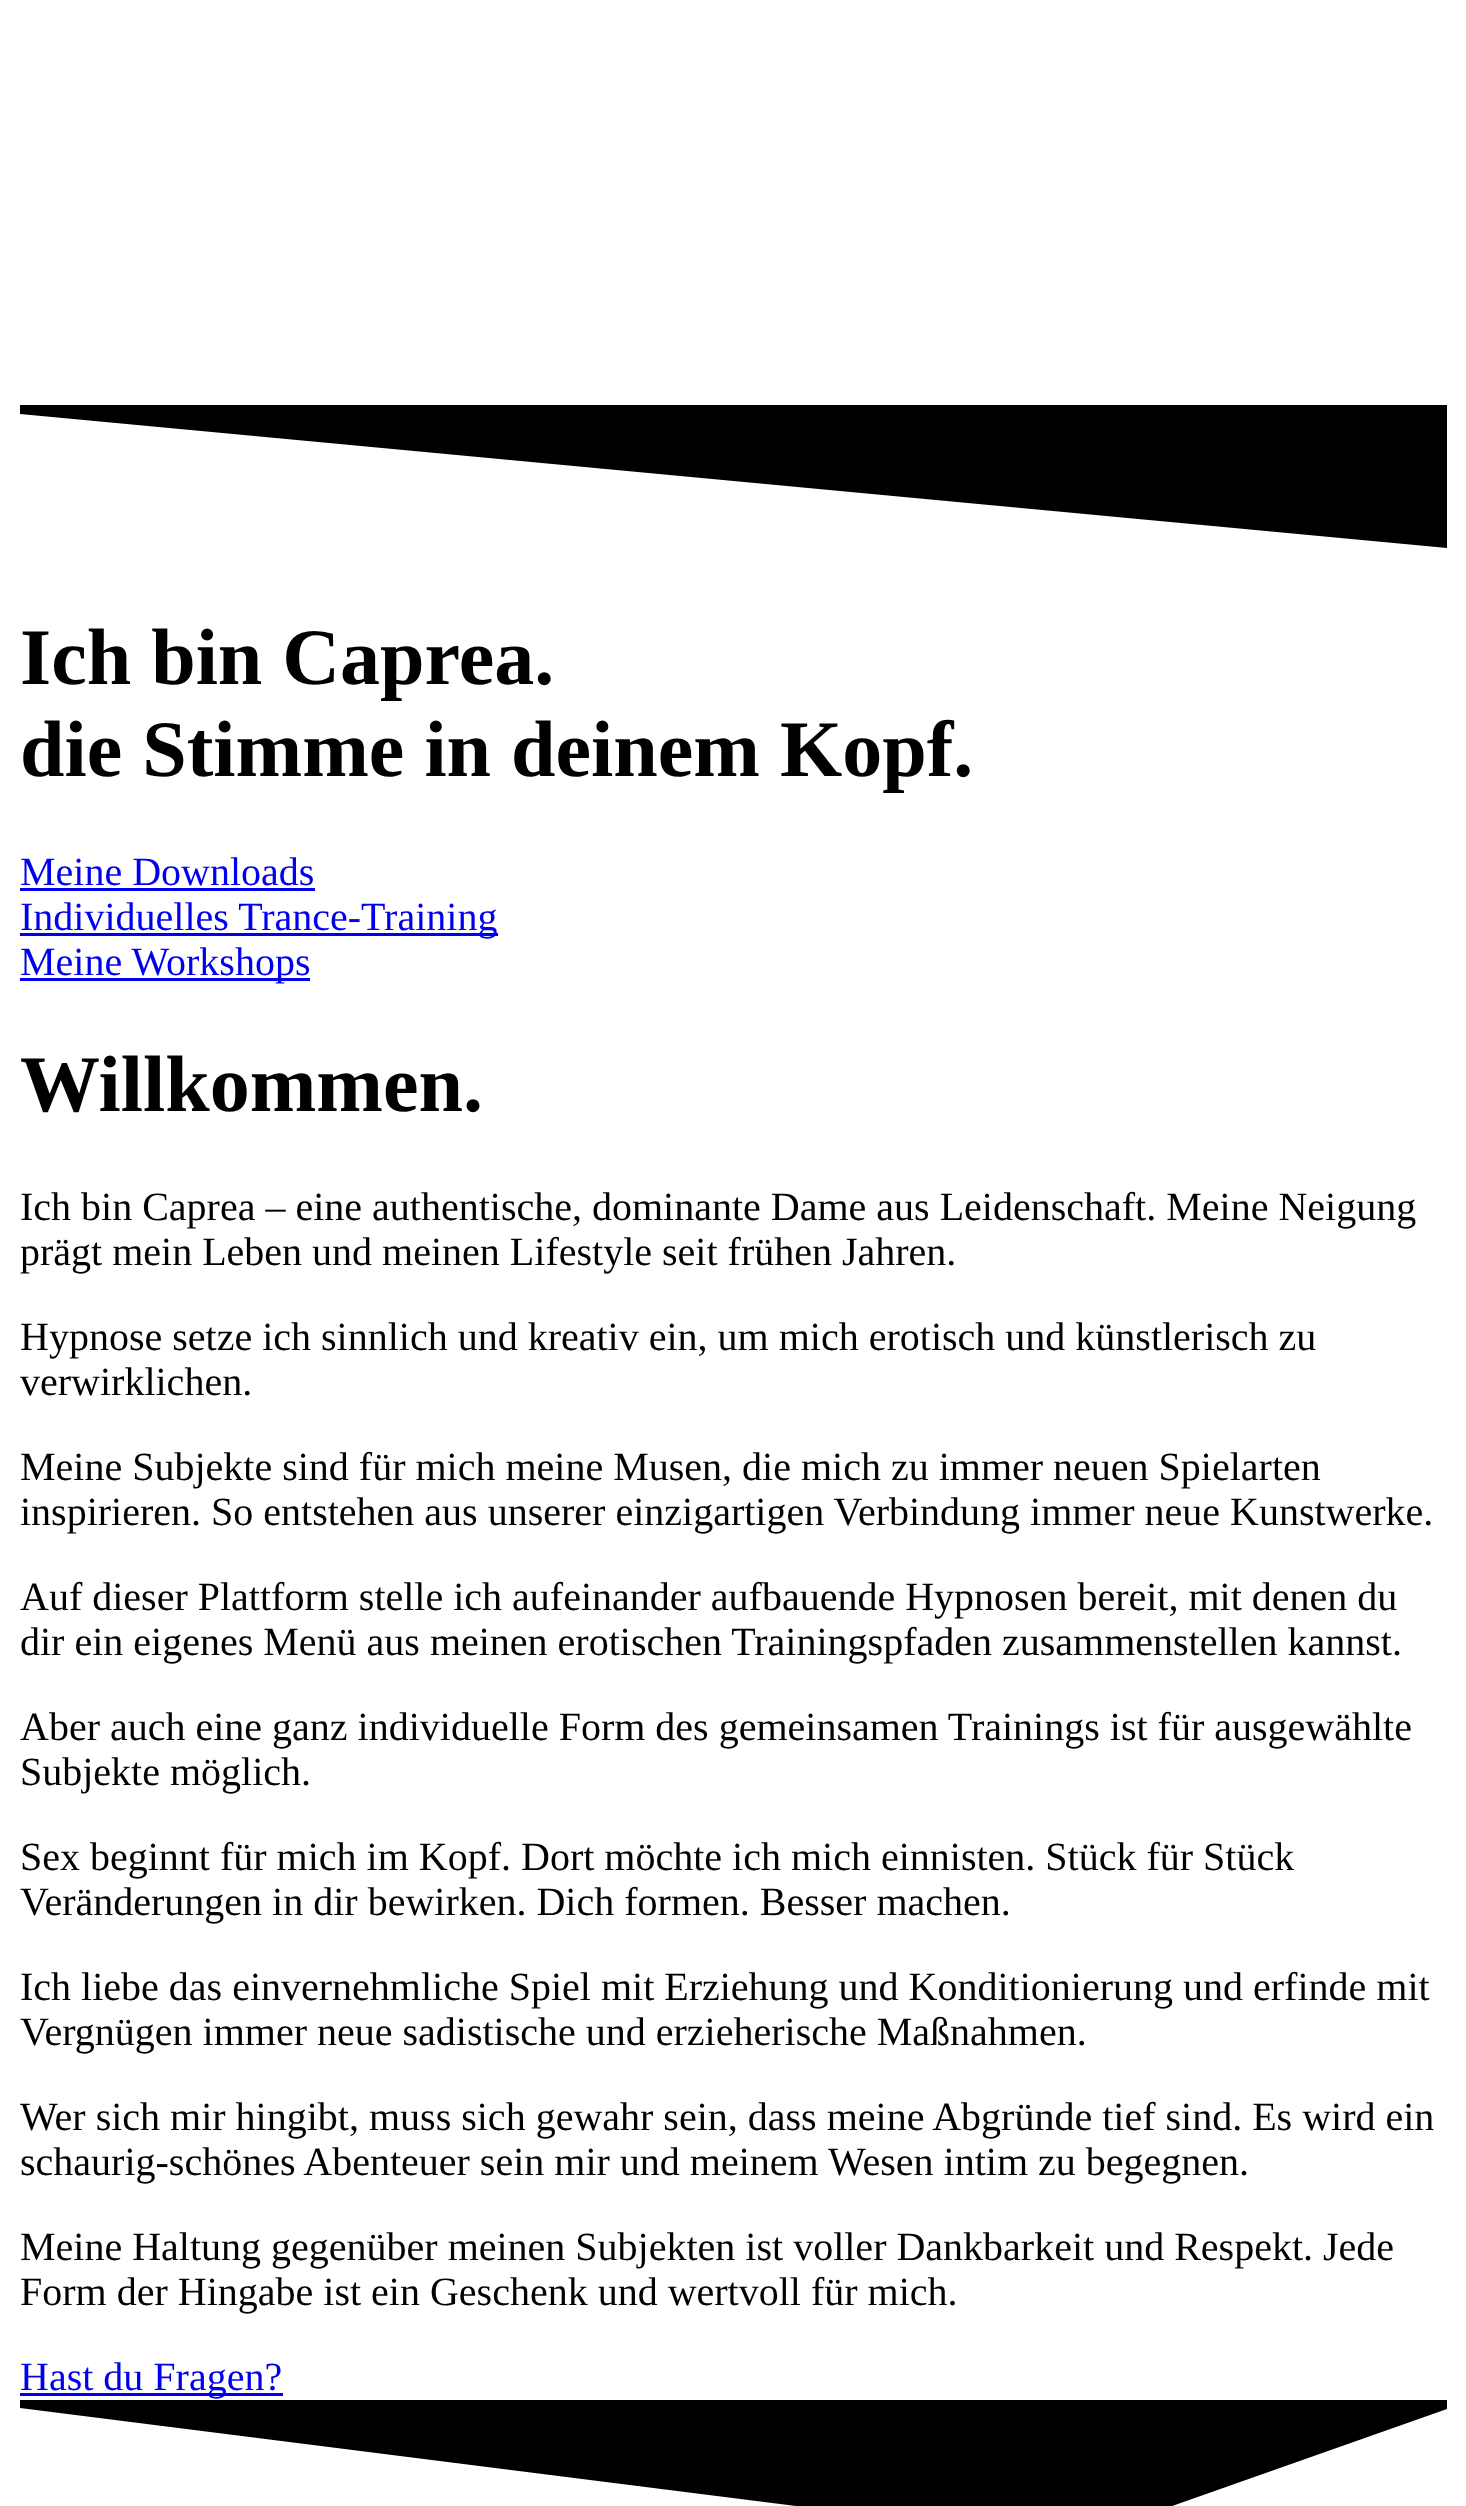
<!DOCTYPE html>
<meta charset="utf-8">
<style>body { margin: 0 } canvas { display: block }</style>
<canvas id="canvas" width="1466" height="2506"></canvas>
<script>
window.onload = function () {
	const canvas = document.getElementById("canvas");
	const ctx = canvas.getContext("2d");
	ctx.miterLimit = 4;
	ctx.fontKerning = "normal";
	function txt(s, x, y) {
		ctx.fillText(s, x, y);
	}
	function fill(x, y, w, h) {
		ctx.fillRect(x, y, w, h);
	}

	ctx.fillStyle = "#FFFFFF";
	fill(0, 0, 1466, 2506);
	ctx.fillStyle = "#000000";
	ctx.beginPath();
	ctx.moveTo(20, 414);
	ctx.lineTo(20, 405);
	ctx.lineTo(1447, 405);
	ctx.lineTo(1447, 548);
	ctx.closePath();
	ctx.fill();
	ctx.fillStyle = "#0000EE";
	fill(20, 888, 295, 3);
	fill(20, 933, 478, 3);
	fill(20, 978, 290, 3);
	fill(20, 2393, 263, 3);
	ctx.fillStyle = "#000000";
	ctx.beginPath();
	ctx.moveTo(1073, 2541);
	ctx.lineTo(1447, 2409);
	ctx.lineTo(1447, 2400);
	ctx.lineTo(20, 2400);
	ctx.lineTo(20, 2408);
	ctx.closePath();
	ctx.fill();
	ctx.font = "bold 80px Liberation Serif";
	txt("Ich bin Caprea.", 20, 684);
	txt("die Stimme in deinem Kopf.", 20, 776);
	ctx.font = "40px Liberation Serif";
	ctx.fillStyle = "#0000EE";
	txt("Meine Downloads", 20, 885);
	txt("Individuelles Trance-Training", 20, 930);
	txt("Meine Workshops", 20, 975);
	ctx.font = "bold 80px Liberation Serif";
	ctx.fillStyle = "#000000";
	txt("Willkommen.", 20, 1111);
	ctx.font = "40px Liberation Serif";
	txt("Ich bin Caprea – eine authentische, dominante Dame aus Leidenschaft. Meine Neigung", 20, 1220);
	txt("prägt mein Leben und meinen Lifestyle seit frühen Jahren.", 20, 1265);
	txt("Hypnose setze ich sinnlich und kreativ ein, um mich erotisch und künstlerisch zu", 20, 1350);
	txt("verwirklichen.", 20, 1395);
	txt("Meine Subjekte sind für mich meine Musen, die mich zu immer neuen Spielarten", 20, 1480);
	txt("inspirieren. So entstehen aus unserer einzigartigen Verbindung immer neue Kunstwerke.", 20, 1525);
	txt("Auf dieser Plattform stelle ich aufeinander aufbauende Hypnosen bereit, mit denen du", 20, 1610);
	txt("dir ein eigenes Menü aus meinen erotischen Trainingspfaden zusammenstellen kannst.", 20, 1655);
	txt("Aber auch eine ganz individuelle Form des gemeinsamen Trainings ist für ausgewählte", 20, 1740);
	txt("Subjekte möglich.", 20, 1785);
	txt("Sex beginnt für mich im Kopf. Dort möchte ich mich einnisten. Stück für Stück", 20, 1870);
	txt("Veränderungen in dir bewirken. Dich formen. Besser machen.", 20, 1915);
	txt("Ich liebe das einvernehmliche Spiel mit Erziehung und Konditionierung und erfinde mit", 20, 2000);
	txt("Vergnügen immer neue sadistische und erzieherische Maßnahmen.", 20, 2045);
	txt("Wer sich mir hingibt, muss sich gewahr sein, dass meine Abgründe tief sind. Es wird ein", 20, 2130);
	txt("schaurig-schönes Abenteuer sein mir und meinem Wesen intim zu begegnen.", 20, 2175);
	txt("Meine Haltung gegenüber meinen Subjekten ist voller Dankbarkeit und Respekt. Jede", 20, 2260);
	txt("Form der Hingabe ist ein Geschenk und wertvoll für mich.", 20, 2305);
	ctx.fillStyle = "#0000EE";
	txt("Hast du Fragen?", 20, 2390);
};
</script>
